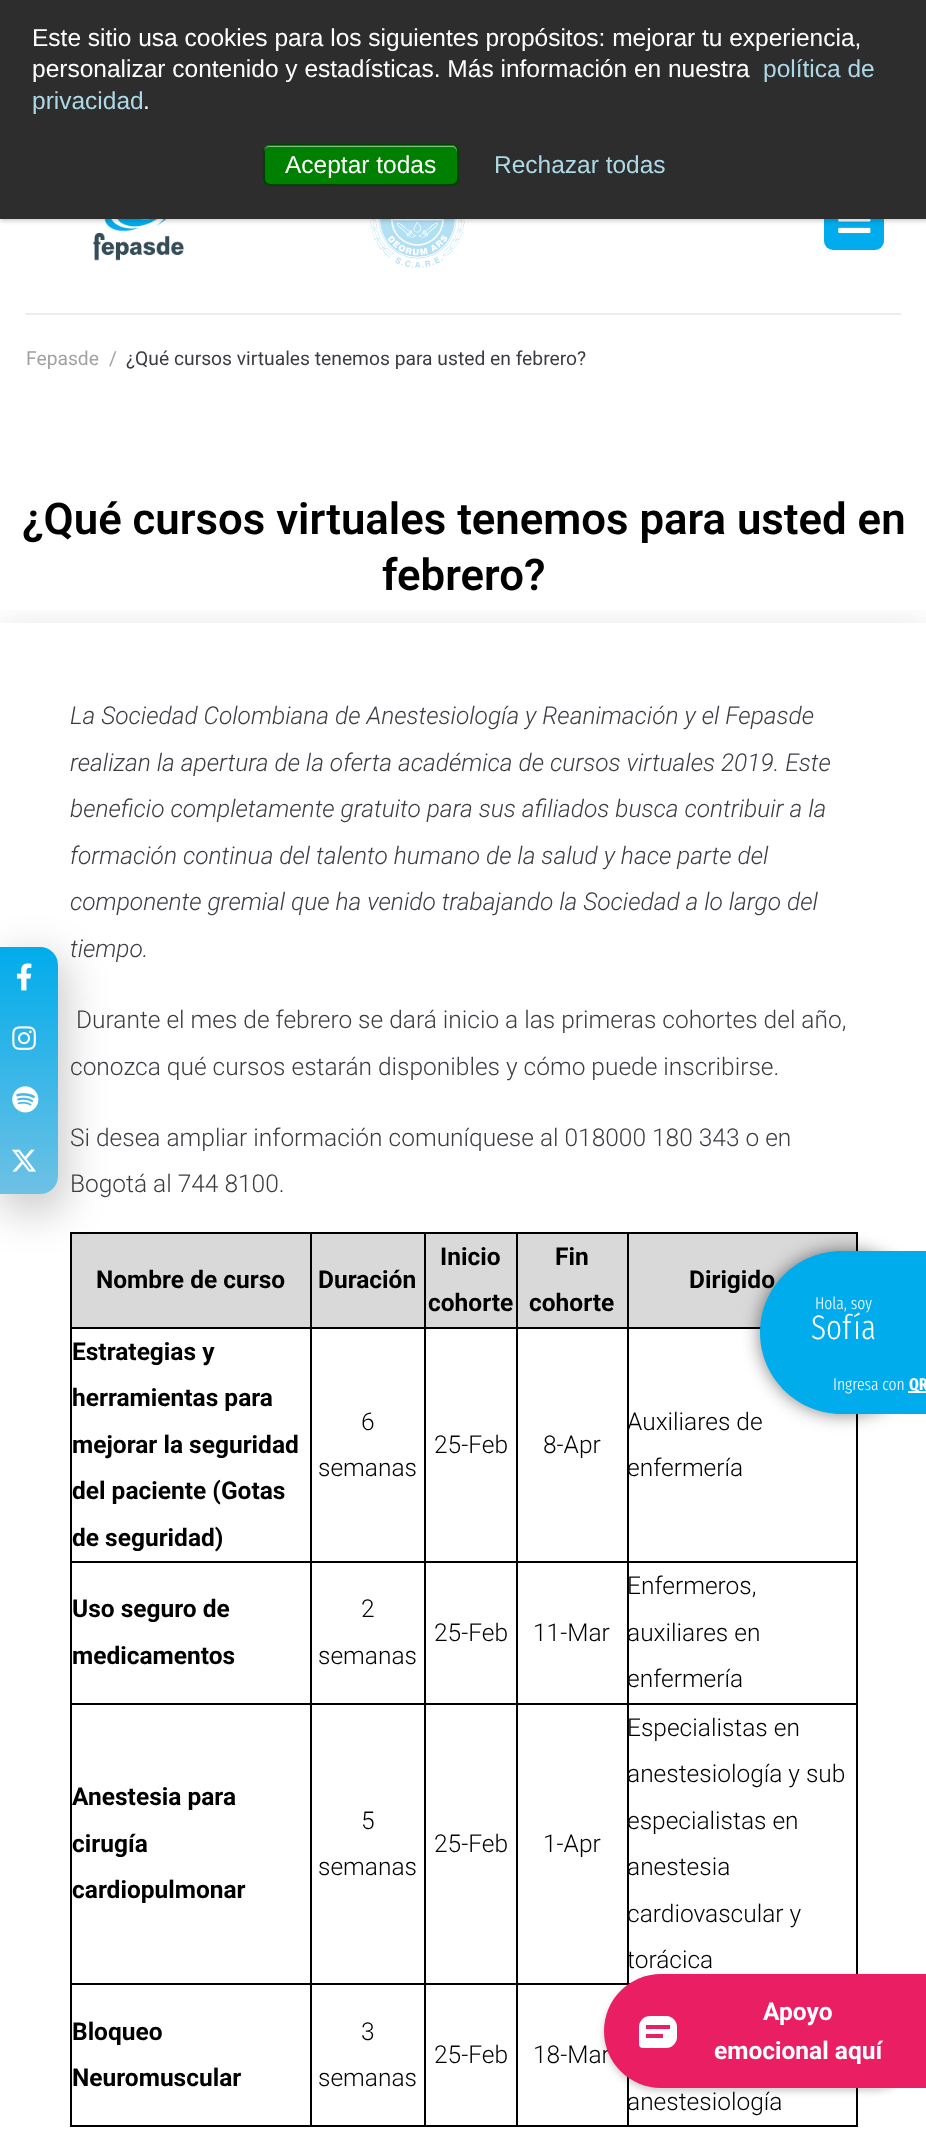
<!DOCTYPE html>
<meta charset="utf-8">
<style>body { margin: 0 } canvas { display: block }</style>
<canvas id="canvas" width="926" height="2140"></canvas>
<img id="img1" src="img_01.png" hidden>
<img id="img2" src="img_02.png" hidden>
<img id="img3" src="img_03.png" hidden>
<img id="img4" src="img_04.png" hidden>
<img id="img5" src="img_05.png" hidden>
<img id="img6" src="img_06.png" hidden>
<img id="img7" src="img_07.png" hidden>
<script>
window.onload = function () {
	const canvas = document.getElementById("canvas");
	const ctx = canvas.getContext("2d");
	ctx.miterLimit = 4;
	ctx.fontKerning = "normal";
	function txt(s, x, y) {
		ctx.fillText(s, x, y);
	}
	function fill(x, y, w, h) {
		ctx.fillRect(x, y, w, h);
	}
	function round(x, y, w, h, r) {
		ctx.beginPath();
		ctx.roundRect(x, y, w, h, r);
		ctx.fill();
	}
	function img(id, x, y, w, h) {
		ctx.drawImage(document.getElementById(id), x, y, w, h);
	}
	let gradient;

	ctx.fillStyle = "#FFFFFF";
	fill(0, 0, 926, 2140);
	img("img1", 93, 219, 91, 42);
	img("img2", 370, 219, 95, 49);
	ctx.fillStyle = "#00ACEB";
	round(824, 191, 60, 59, 9);
	img("img3", 838, 219, 33, 15);
	ctx.fillStyle = "rgba(0, 0, 0, 0.2)";
	ctx.filter = "blur(2px)";
	ctx.beginPath();
	ctx.rect(0, 2, 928, 219);
	ctx.fill();
	ctx.filter = "none";
	ctx.fillStyle = "#2D2D2D";
	fill(0, 0, 926, 219);
	ctx.fillStyle = "#008000";
	round(263, 144, 196, 42, 7);
	ctx.fillStyle = "#80BF80";
	ctx.beginPath();
	ctx.moveTo(270, 147);
	ctx.lineTo(452, 147);
	ctx.bezierCurveTo(454, 147, 457, 149, 457, 152);
	ctx.lineTo(457, 150);
	ctx.bezierCurveTo(457, 147, 455, 145, 452, 145);
	ctx.lineTo(269, 145);
	ctx.bezierCurveTo(266, 145, 264, 147, 264, 150);
	ctx.lineTo(264, 152);
	ctx.bezierCurveTo(264, 149, 267, 147, 270, 147);
	ctx.closePath();
	ctx.fill();
	ctx.beginPath();
	ctx.roundRect(264, 145, 194, 40, 6);
	ctx.strokeStyle = "rgba(0, 0, 0, 0.5)";
	ctx.lineWidth = 2;
	ctx.stroke();
	ctx.fillStyle = "#EBECED";
	fill(26, 313, 875, 2);
	ctx.save();
	ctx.beginPath();
	ctx.rect(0, 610, 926, 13);
	ctx.clip();
	ctx.fillStyle = "rgba(0, 0, 0, 0.09)";
	ctx.filter = "blur(17.5px)";
	ctx.beginPath();
	ctx.rect(0, 623, 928, 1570);
	ctx.fill();
	ctx.filter = "none";
	ctx.restore();
	ctx.fillStyle = "#D9D9D9";
	fill(72, 1234, 238, 93);
	ctx.fillStyle = "#000000";
	fill(627, 1232, 231, 2);
	fill(627, 1327, 134, 2);
	fill(627, 1561, 231, 2);
	fill(627, 1703, 231, 2);
	fill(627, 1983, 4, 1);
	fill(856, 2088, 2, 38);
	fill(627, 2125, 231, 2);
	fill(627, 1983, 2, 143);
	fill(516, 1983, 112, 2);
	fill(627, 1703, 2, 282);
	fill(516, 1703, 112, 2);
	fill(627, 1561, 2, 144);
	fill(516, 1561, 112, 2);
	fill(627, 1327, 2, 236);
	fill(516, 1327, 112, 2);
	fill(627, 1232, 2, 96);
	fill(516, 1232, 112, 2);
	fill(516, 2125, 112, 2);
	fill(516, 1983, 2, 143);
	fill(424, 1983, 94, 2);
	fill(516, 1703, 2, 282);
	fill(424, 1703, 94, 2);
	fill(516, 1561, 2, 144);
	fill(424, 1561, 94, 2);
	fill(516, 1327, 2, 236);
	fill(424, 1327, 94, 2);
	fill(516, 1232, 2, 96);
	fill(424, 1232, 94, 2);
	fill(424, 2125, 94, 2);
	fill(424, 1983, 2, 143);
	fill(310, 1983, 115, 2);
	fill(424, 1703, 2, 282);
	fill(310, 1703, 115, 2);
	fill(424, 1561, 2, 144);
	fill(310, 1561, 115, 2);
	fill(424, 1327, 2, 236);
	fill(310, 1327, 115, 2);
	fill(424, 1232, 2, 96);
	fill(310, 1232, 115, 2);
	fill(310, 2125, 115, 2);
	fill(310, 1983, 2, 143);
	fill(70, 1983, 242, 2);
	fill(310, 1703, 2, 282);
	fill(70, 1703, 242, 2);
	fill(310, 1561, 2, 144);
	fill(70, 1561, 242, 2);
	fill(310, 1327, 2, 236);
	fill(70, 1327, 242, 2);
	fill(310, 1232, 2, 96);
	fill(70, 1232, 242, 2);
	fill(70, 2125, 242, 2);
	fill(70, 1983, 2, 143);
	fill(70, 1703, 2, 282);
	fill(70, 1561, 2, 144);
	fill(70, 1327, 2, 236);
	fill(70, 1232, 2, 96);
	ctx.fillStyle = "#D9D9D9";
	fill(312, 1234, 112, 93);
	fill(426, 1234, 90, 93);
	fill(518, 1234, 109, 93);
	fill(629, 1234, 227, 93);
	ctx.fillStyle = "#000000";
	fill(856, 1232, 2, 19);
	fill(856, 1703, 2, 271);
	fill(856, 1414, 2, 291);
	ctx.fillStyle = "rgba(0, 0, 0, 0.2)";
	ctx.filter = "blur(20px)";
	ctx.beginPath();
	ctx.roundRect(-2, 956, 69, 257, 23);
	ctx.fill();
	ctx.filter = "none";
	gradient = ctx.createLinearGradient(29, 947, 29, 1194);
	gradient.addColorStop(0, "#00ACEB");
	gradient.addColorStop(1, "#6EC1E4");
	ctx.fillStyle = gradient;
	ctx.beginPath();
	ctx.roundRect(0, 947, 58, 247, [0, 18, 18, 0]);
	ctx.fill();
	img("img4", 16, 963, 16, 28);
	img("img5", 12, 1026, 24, 24);
	img("img6", 12, 1086, 27, 27);
	img("img7", 12, 1149, 24, 23);
	ctx.fillStyle = "rgba(0, 0, 0, 0.5)";
	ctx.filter = "blur(9px)";
	ctx.beginPath();
	ctx.roundRect(760, 1251, 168, 163, 81.5);
	ctx.fill();
	ctx.filter = "none";
	ctx.fillStyle = "rgba(0, 0, 0, 0.2)";
	ctx.filter = "blur(3.5px)";
	ctx.beginPath();
	ctx.roundRect(604, 1978, 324, 113, 56.5);
	ctx.fill();
	ctx.filter = "none";
	ctx.font = "24.5px Liberation Sans";
	ctx.fillStyle = "#FFFFFF";
	txt("Este sitio usa cookies para los siguientes propósitos: mejorar tu experiencia,", 32, 46);
	txt("personalizar contenido y estadísticas. Más información en nuestra", 32, 77);
	ctx.fillStyle = "#ADD8E6";
	txt("política de", 763, 77);
	txt("privacidad", 32, 109);
	ctx.fillStyle = "#FFFFFF";
	txt(".", 143, 109);
	txt("Aceptar todas", 285, 173);
	ctx.fillStyle = "#ADD8E6";
	txt("Rechazar todas", 494, 173);
	ctx.font = "19.25px Roboto";
	ctx.fillStyle = "#A1A2A4";
	txt("Fepasde", 26, 365);
	txt("/", 109, 365);
	ctx.fillStyle = "#3B3D42";
	txt("¿Qué cursos virtuales tenemos para usted en febrero?", 126, 365);
	ctx.font = "600 43.75px Roboto";
	ctx.fillStyle = "#000000";
	txt("¿Qué cursos virtuales tenemos para usted en", 22, 534);
	txt("febrero?", 382, 590);
	ctx.font = "italic 300 24.5px Roboto";
	ctx.fillStyle = "#3B3D42";
	txt("La Sociedad Colombiana de Anestesiología y Reanimación y el Fepasde", 70, 724);
	txt("realizan la apertura de la oferta académica de cursos virtuales 2019. Este", 70, 771);
	txt("beneficio completamente gratuito para sus afiliados busca contribuir a la", 70, 817);
	txt("formación continua del talento humano de la salud y hace parte del", 70, 864);
	txt("componente gremial que ha venido trabajando la Sociedad a lo largo del", 70, 910);
	txt("tiempo.", 70, 957);
	ctx.font = "300 24.5px Roboto";
	txt("Durante el mes de febrero se dará inicio a las primeras cohortes del año,", 76, 1028);
	txt("conozca qué cursos estarán disponibles y cómo puede inscribirse.", 70, 1075);
	txt("Si desea ampliar información comuníquese al 018000 180 343 o en", 70, 1146);
	txt("Bogotá al 744 8100.", 70, 1192);
	ctx.font = "bold 24.5px Roboto";
	ctx.fillStyle = "#000000";
	txt("Nombre de curso", 96, 1288);
	txt("Duración", 318, 1288);
	txt("Inicio", 440, 1265);
	txt("cohorte", 428, 1311);
	txt("Fin", 555, 1265);
	txt("cohorte", 529, 1311);
	txt("Dirigido", 689, 1288);
	txt("Estrategias y", 72, 1360);
	txt("herramientas para", 72, 1406);
	txt("mejorar la seguridad", 72, 1453);
	txt("del paciente (Gotas", 72, 1499);
	txt("de seguridad)", 72, 1546);
	ctx.font = "300 24.5px Roboto";
	txt("6", 361, 1430);
	txt("semanas", 318, 1476);
	txt("25-Feb", 434, 1453);
	txt("8-Apr", 543, 1453);
	txt("Auxiliares de", 627, 1430);
	txt("enfermería", 627, 1476);
	ctx.font = "bold 24.5px Roboto";
	txt("Uso seguro de", 72, 1617);
	txt("medicamentos", 72, 1664);
	ctx.font = "300 24.5px Roboto";
	txt("2", 361, 1617);
	txt("semanas", 318, 1664);
	txt("25-Feb", 434, 1641);
	txt("11-Mar", 533, 1641);
	txt("Enfermeros,", 627, 1594);
	txt("auxiliares en", 627, 1641);
	txt("enfermería", 627, 1687);
	ctx.font = "bold 24.5px Roboto";
	txt("Anestesia para", 72, 1805);
	txt("cirugía", 72, 1852);
	txt("cardiopulmonar", 72, 1898);
	ctx.font = "300 24.5px Roboto";
	txt("5", 361, 1829);
	txt("semanas", 318, 1875);
	txt("25-Feb", 434, 1852);
	txt("1-Apr", 543, 1852);
	txt("Especialistas en", 627, 1736);
	txt("anestesiología y sub", 627, 1782);
	txt("especialistas en", 627, 1829);
	txt("anestesia", 627, 1875);
	txt("cardiovascular y", 627, 1922);
	txt("torácica", 627, 1968);
	ctx.font = "bold 24.5px Roboto";
	txt("Bloqueo", 72, 2040);
	txt("Neuromuscular", 72, 2086);
	ctx.font = "300 24.5px Roboto";
	txt("3", 361, 2040);
	txt("semanas", 318, 2086);
	txt("25-Feb", 434, 2063);
	txt("18-Mar", 533, 2063);
	txt("anestesiología", 627, 2110);
	ctx.fillStyle = "#00ACEB";
	ctx.beginPath();
	ctx.moveTo(841.5, 1251);
	ctx.lineTo(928, 1251);
	ctx.lineTo(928, 1414);
	ctx.lineTo(841.5, 1414);
	ctx.bezierCurveTo(796.5, 1414, 760, 1377.5, 760, 1332.5);
	ctx.bezierCurveTo(760, 1287.5, 796.5, 1251, 841.5, 1251);
	ctx.closePath();
	ctx.fill();
	ctx.font = "300 17px Fira Sans Extra Condensed";
	ctx.fillStyle = "#FFFFFF";
	txt("Hola, soy", 815, 1309);
	ctx.font = "300 34px Fira Sans Extra Condensed";
	txt("Sofía", 811, 1339);
	ctx.font = "300 17px Fira Sans Extra Condensed";
	txt("Ingresa con", 833, 1390);
	fill(908, 1391, 18, 2);
	ctx.font = "bold 17px Fira Sans Extra Condensed";
	txt("QR", 909, 1390);
	ctx.fillStyle = "#E91E63";
	ctx.beginPath();
	ctx.moveTo(661, 1974);
	ctx.lineTo(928, 1974);
	ctx.lineTo(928, 2088);
	ctx.lineTo(661, 2088);
	ctx.bezierCurveTo(629.5, 2088, 604, 2062.5, 604, 2031);
	ctx.bezierCurveTo(604, 1999.5, 629.5, 1974, 661, 1974);
	ctx.closePath();
	ctx.fill();
	ctx.fillStyle = "#FFFFFF";
	ctx.beginPath();
	ctx.roundRect(639, 2016, 38, 32, [11, 11, 11, 4]);
	ctx.fill();
	ctx.fillStyle = "#E91E63";
	fill(646, 2025, 24, 4);
	fill(646, 2034, 17, 4);
	ctx.font = "bold 24.5px Roboto";
	ctx.fillStyle = "#FFFFFF";
	txt("Apoyo", 763, 2020);
	txt("emocional aquí", 714, 2059);
};
</script>
